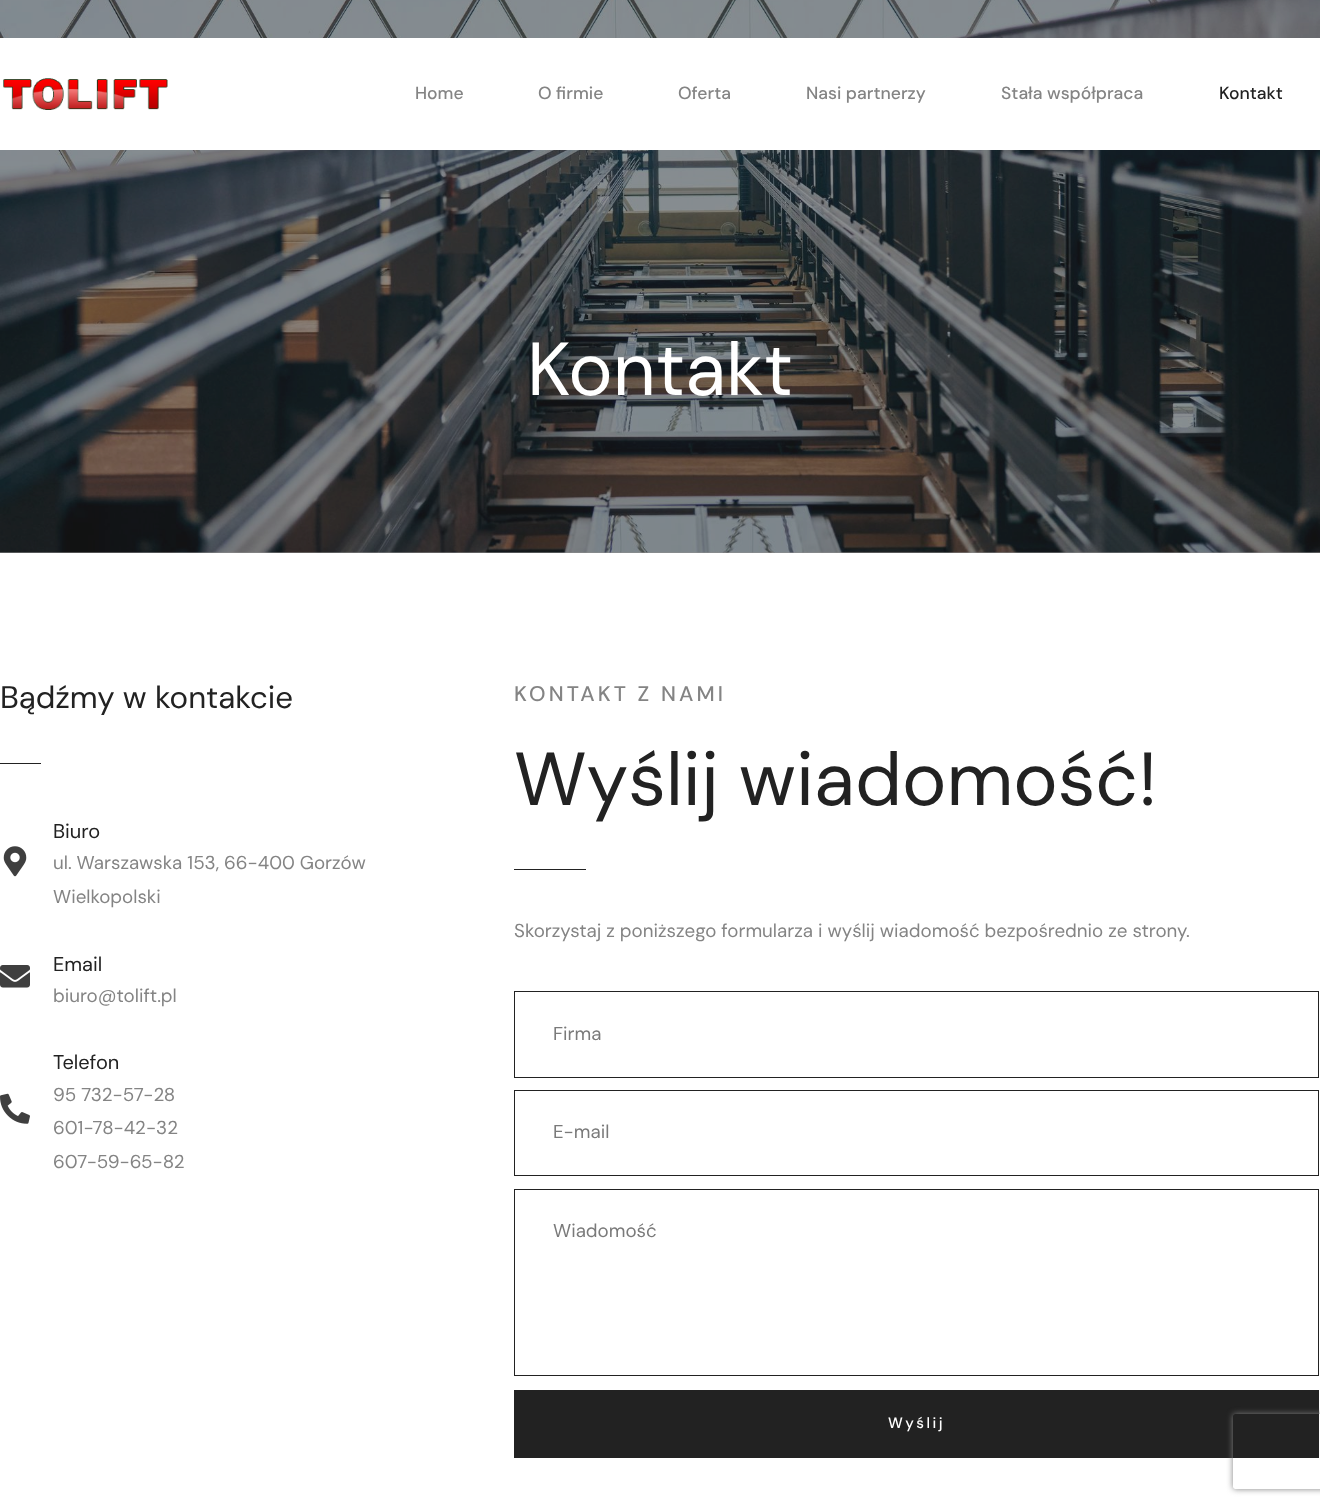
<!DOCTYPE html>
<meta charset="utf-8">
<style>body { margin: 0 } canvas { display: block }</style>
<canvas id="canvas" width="1320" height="1506"></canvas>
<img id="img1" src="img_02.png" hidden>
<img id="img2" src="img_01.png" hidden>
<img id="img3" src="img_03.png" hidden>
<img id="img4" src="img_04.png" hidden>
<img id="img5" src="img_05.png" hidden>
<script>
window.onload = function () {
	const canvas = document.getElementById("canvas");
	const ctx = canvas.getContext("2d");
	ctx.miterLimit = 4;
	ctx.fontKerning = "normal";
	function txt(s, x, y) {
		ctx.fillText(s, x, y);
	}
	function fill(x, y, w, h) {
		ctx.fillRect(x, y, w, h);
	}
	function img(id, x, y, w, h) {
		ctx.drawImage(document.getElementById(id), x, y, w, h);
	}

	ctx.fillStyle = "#FFFFFF";
	fill(0, 0, 1320, 1506);
	ctx.fillStyle = "#919191";
	fill(0, 552, 1320, 1);
	img("img1", 0, 0, 1320, 553);
	ctx.fillStyle = "#FFFFFF";
	fill(0, 38, 1320, 112);
	img("img2", 3, 78, 165, 32);
	ctx.fillStyle = "#222222";
	fill(0, 763, 41, 1);
	img("img3", 3, 846, 24, 31);
	img("img4", 0, 965, 30, 23);
	img("img5", 0, 1093, 30, 31);
	fill(514, 869, 72, 1);
	ctx.strokeStyle = "#222222";
	ctx.strokeRect(514.5, 991.5, 804, 86);
	ctx.strokeRect(514.5, 1090.5, 804, 85);
	ctx.strokeRect(514.5, 1189.5, 804, 186);
	fill(514, 1390, 805, 68);
	ctx.save();
	ctx.beginPath();
	ctx.moveTo(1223, 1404);
	ctx.lineTo(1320, 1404);
	ctx.lineTo(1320, 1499);
	ctx.lineTo(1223, 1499);
	ctx.closePath();
	ctx.moveTo(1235.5, 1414);
	ctx.lineTo(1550.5, 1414);
	ctx.bezierCurveTo(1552, 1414, 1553, 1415, 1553, 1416.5);
	ctx.lineTo(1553, 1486.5);
	ctx.bezierCurveTo(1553, 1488, 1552, 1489, 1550.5, 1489);
	ctx.lineTo(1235.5, 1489);
	ctx.bezierCurveTo(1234, 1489, 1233, 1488, 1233, 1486.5);
	ctx.lineTo(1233, 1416.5);
	ctx.bezierCurveTo(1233, 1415, 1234, 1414, 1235.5, 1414);
	ctx.closePath();
	ctx.clip("evenodd");
	ctx.fillStyle = "#808080";
	ctx.filter = "blur(3px)";
	ctx.beginPath();
	ctx.roundRect(1233, 1414, 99, 75, 2.5);
	ctx.fill();
	ctx.filter = "none";
	ctx.restore();
	ctx.font = "500 17.5px DM Sans";
	ctx.fillStyle = "#848484";
	txt("Home", 415, 99);
	txt("O firmie", 538, 99);
	txt("Oferta", 678, 99);
	txt("Nasi partnerzy", 806, 99);
	txt("Stała współpraca", 1001, 99);
	ctx.fillStyle = "#222222";
	txt("Kontakt", 1219, 99);
	ctx.font = "75px DM Sans";
	ctx.fillStyle = "#FFFFFF";
	txt("Kontakt", 527, 395);
	ctx.font = "31.25px DM Sans";
	ctx.fillStyle = "#222222";
	txt("Bądźmy w kontakcie", 0, 708);
	ctx.font = "20px DM Sans";
	txt("Biuro", 53, 838);
	ctx.font = "18.75px DM Sans";
	ctx.fillStyle = "#848484";
	txt("ul. Warszawska 153, 66-400 Gorzów", 53, 869);
	txt("Wielkopolski", 53, 903);
	ctx.font = "20px DM Sans";
	ctx.fillStyle = "#222222";
	txt("Email", 53, 971);
	ctx.font = "18.75px DM Sans";
	ctx.fillStyle = "#848484";
	txt("biuro@tolift.pl", 53, 1002);
	ctx.font = "20px DM Sans";
	ctx.fillStyle = "#222222";
	txt("Telefon", 53, 1069);
	ctx.font = "18.75px DM Sans";
	ctx.fillStyle = "#848484";
	txt("95 732-57-28", 53, 1101);
	txt("601-78-42-32", 53, 1134);
	txt("607-59-65-82", 53, 1168);
	ctx.letterSpacing = "3.1px";
	ctx.font = "500 21.25px DM Sans";
	txt("KONTAKT Z NAMI", 514, 701);
	ctx.letterSpacing = "0px";
	ctx.font = "75px DM Sans";
	ctx.fillStyle = "#222222";
	txt("Wyślij wiadomość!", 514, 805);
	ctx.font = "18.75px DM Sans";
	ctx.fillStyle = "#848484";
	txt("Skorzystaj z poniższego formularza i wyślij wiadomość bezpośrednio ze strony.", 514, 937);
	ctx.fillStyle = "#7A7A7A";
	txt("Firma", 553, 1040);
	txt("E-mail", 553, 1138);
	txt("Wiadomość", 553, 1237);
	ctx.letterSpacing = "2.5px";
	ctx.font = "500 15px DM Sans";
	ctx.fillStyle = "#FFFFFF";
	txt("Wyślij", 888, 1428);
};
</script>
